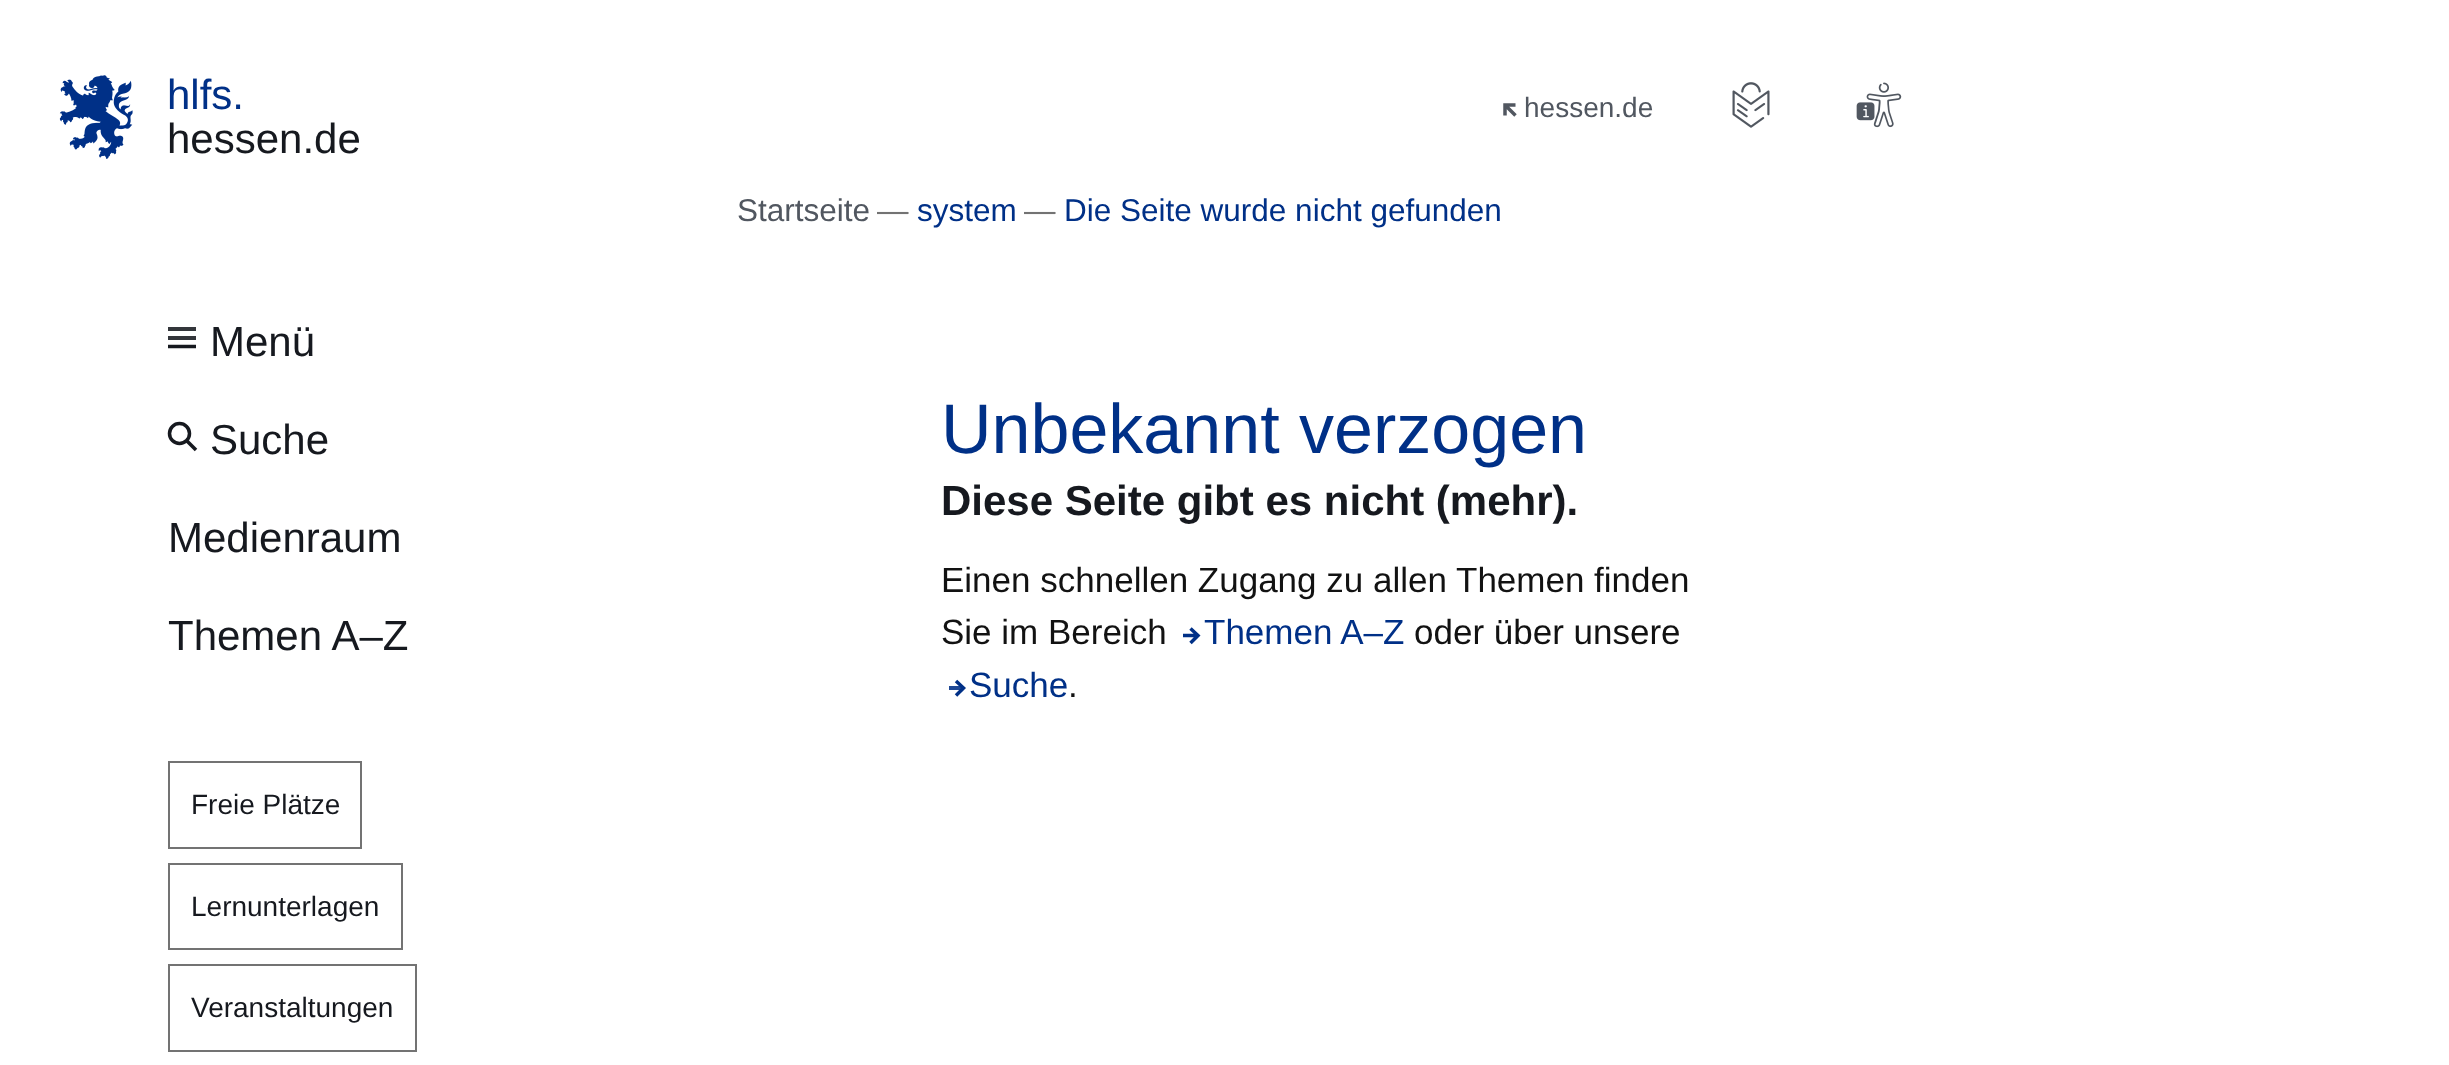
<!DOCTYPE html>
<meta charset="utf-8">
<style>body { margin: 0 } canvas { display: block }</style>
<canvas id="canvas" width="2449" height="1065"></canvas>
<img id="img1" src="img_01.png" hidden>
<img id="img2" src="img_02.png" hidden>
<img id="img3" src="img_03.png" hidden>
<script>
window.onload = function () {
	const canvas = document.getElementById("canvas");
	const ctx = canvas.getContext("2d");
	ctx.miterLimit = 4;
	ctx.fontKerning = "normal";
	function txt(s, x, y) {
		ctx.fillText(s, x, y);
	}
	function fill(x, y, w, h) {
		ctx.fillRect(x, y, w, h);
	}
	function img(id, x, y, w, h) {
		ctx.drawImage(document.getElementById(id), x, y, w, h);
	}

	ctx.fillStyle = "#FFFFFF";
	fill(0, 0, 2449, 1065);
	img("img1", 59, 75, 74, 84);
	ctx.beginPath();
	ctx.moveTo(1505, 115.5);
	ctx.lineTo(1505, 105);
	ctx.lineTo(1515.5, 105);
	ctx.moveTo(1505, 105);
	ctx.lineTo(1515.5, 115.5);
	ctx.strokeStyle = "#515760";
	ctx.lineWidth = 3.5;
	ctx.stroke();
	img("img2", 1732, 82, 38, 46);
	img("img3", 1856, 82, 46, 46);
	ctx.fillStyle = "#33363B";
	fill(168, 327, 28, 4);
	fill(168, 336, 28, 4);
	ctx.beginPath();
	ctx.moveTo(168, 346.5);
	ctx.lineTo(196, 346.5);
	ctx.strokeStyle = "#16191F";
	ctx.stroke();
	ctx.beginPath();
	ctx.moveTo(186.5, 440.5);
	ctx.lineTo(196, 450);
	ctx.stroke();
	ctx.beginPath();
	ctx.arc(179.5, 433.5, 10, 0, Math.PI * 2);
	ctx.stroke();
	ctx.strokeStyle = "#737373";
	ctx.lineWidth = 2;
	ctx.strokeRect(169, 762, 192, 86);
	ctx.strokeRect(169, 864, 233, 85);
	ctx.strokeRect(169, 965, 247, 86);
	ctx.beginPath();
	ctx.moveTo(1190.5, 628.5);
	ctx.lineTo(1198, 635.5);
	ctx.lineTo(1190.5, 643);
	ctx.moveTo(1198, 635.5);
	ctx.lineTo(1183, 635.5);
	ctx.strokeStyle = "#003087";
	ctx.lineWidth = 3.5;
	ctx.stroke();
	ctx.beginPath();
	ctx.moveTo(956, 681);
	ctx.lineTo(963.5, 688);
	ctx.lineTo(956, 695.5);
	ctx.stroke();
	ctx.fillStyle = "rgba(0, 48, 135, 0.88)";
	fill(949, 686, 15, 4);
	ctx.font = "42px Liberation Sans";
	ctx.fillStyle = "#003087";
	txt("hlfs.", 167, 109);
	ctx.fillStyle = "#16191F";
	txt("hessen.de", 167, 153);
	ctx.font = "28px Liberation Sans";
	ctx.fillStyle = "#515760";
	txt("hessen.de", 1524, 117);
	ctx.font = "42px Liberation Sans";
	ctx.fillStyle = "#16191F";
	txt("Menü", 210, 356);
	txt("Suche", 210, 454);
	txt("Medienraum", 168, 552);
	txt("Themen A–Z", 168, 650);
	ctx.font = "28px Liberation Sans";
	txt("Freie Plätze", 191, 814);
	txt("Lernunterlagen", 191, 916);
	txt("Veranstaltungen", 191, 1017);
	ctx.font = "31.5px Liberation Sans";
	ctx.fillStyle = "#515760";
	txt("Startseite", 737, 221);
	ctx.fillStyle = "#737373";
	txt("—", 877, 221);
	ctx.fillStyle = "#003087";
	txt("system", 917, 221);
	ctx.fillStyle = "#737373";
	txt("—", 1024, 221);
	ctx.fillStyle = "#003087";
	txt("Die Seite wurde nicht gefunden", 1064, 221);
	ctx.font = "70px Liberation Sans";
	txt("Unbekannt verzogen", 941, 453);
	ctx.font = "bold 42px Liberation Sans";
	ctx.fillStyle = "#16191F";
	txt("Diese Seite gibt es nicht (mehr).", 941, 515);
	ctx.font = "35px Liberation Sans";
	ctx.fillStyle = "#121212";
	txt("Einen schnellen Zugang zu allen Themen finden", 941, 592);
	txt("Sie im Bereich", 941, 644);
	ctx.fillStyle = "#003087";
	txt("Themen A–Z", 1204, 644);
	ctx.fillStyle = "#121212";
	txt("oder über unsere", 1414, 644);
	ctx.fillStyle = "#003087";
	txt("Suche", 969, 697);
	ctx.fillStyle = "#121212";
	txt(".", 1068, 697);
};
</script>
